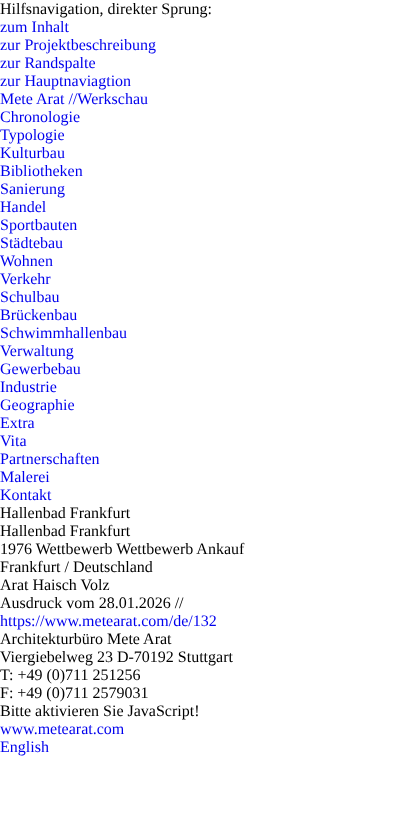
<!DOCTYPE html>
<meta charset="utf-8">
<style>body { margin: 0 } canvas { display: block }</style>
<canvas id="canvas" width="400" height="818"></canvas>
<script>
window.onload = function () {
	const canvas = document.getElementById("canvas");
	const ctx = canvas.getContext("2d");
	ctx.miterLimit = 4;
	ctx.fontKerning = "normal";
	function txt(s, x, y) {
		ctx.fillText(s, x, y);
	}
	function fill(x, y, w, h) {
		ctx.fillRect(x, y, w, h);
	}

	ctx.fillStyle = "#FFFFFF";
	fill(0, 0, 400, 818);
	ctx.font = "16px Liberation Serif";
	ctx.fillStyle = "#000000";
	txt("Hilfsnavigation, direkter Sprung:", 0, 14);
	ctx.fillStyle = "#0000EE";
	txt("zum Inhalt", 0, 32);
	txt("zur Projektbeschreibung", 0, 50);
	txt("zur Randspalte", 0, 68);
	txt("zur Hauptnaviagtion", 0, 86);
	txt("Mete Arat //Werkschau", 0, 104);
	txt("Chronologie", 0, 122);
	txt("Typologie", 0, 140);
	txt("Kulturbau", 0, 158);
	txt("Bibliotheken", 0, 176);
	txt("Sanierung", 0, 194);
	txt("Handel", 0, 212);
	txt("Sportbauten", 0, 230);
	txt("Städtebau", 0, 248);
	txt("Wohnen", 0, 266);
	txt("Verkehr", 0, 284);
	txt("Schulbau", 0, 302);
	txt("Brückenbau", 0, 320);
	txt("Schwimmhallenbau", 0, 338);
	txt("Verwaltung", 0, 356);
	txt("Gewerbebau", 0, 374);
	txt("Industrie", 0, 392);
	txt("Geographie", 0, 410);
	txt("Extra", 0, 428);
	txt("Vita", 0, 446);
	txt("Partnerschaften", 0, 464);
	txt("Malerei", 0, 482);
	txt("Kontakt", 0, 500);
	ctx.fillStyle = "#000000";
	txt("Hallenbad Frankfurt", 0, 518);
	txt("Hallenbad Frankfurt", 0, 536);
	txt("1976 Wettbewerb Wettbewerb Ankauf", 0, 554);
	txt("Frankfurt / Deutschland", 0, 572);
	txt("Arat Haisch Volz", 0, 590);
	txt("Ausdruck vom 28.01.2026 //", 0, 608);
	ctx.fillStyle = "#0000EE";
	txt("https://www.metearat.com/de/132", 0, 626);
	ctx.fillStyle = "#000000";
	txt("Architekturbüro Mete Arat", 0, 644);
	txt("Viergiebelweg 23 D-70192 Stuttgart", 0, 662);
	txt("T: +49 (0)711 251256", 0, 680);
	txt("F: +49 (0)711 2579031", 0, 698);
	txt("Bitte aktivieren Sie JavaScript!", 0, 716);
	ctx.fillStyle = "#0000EE";
	txt("www.metearat.com", 0, 734);
	txt("English", 0, 752);
};
</script>
